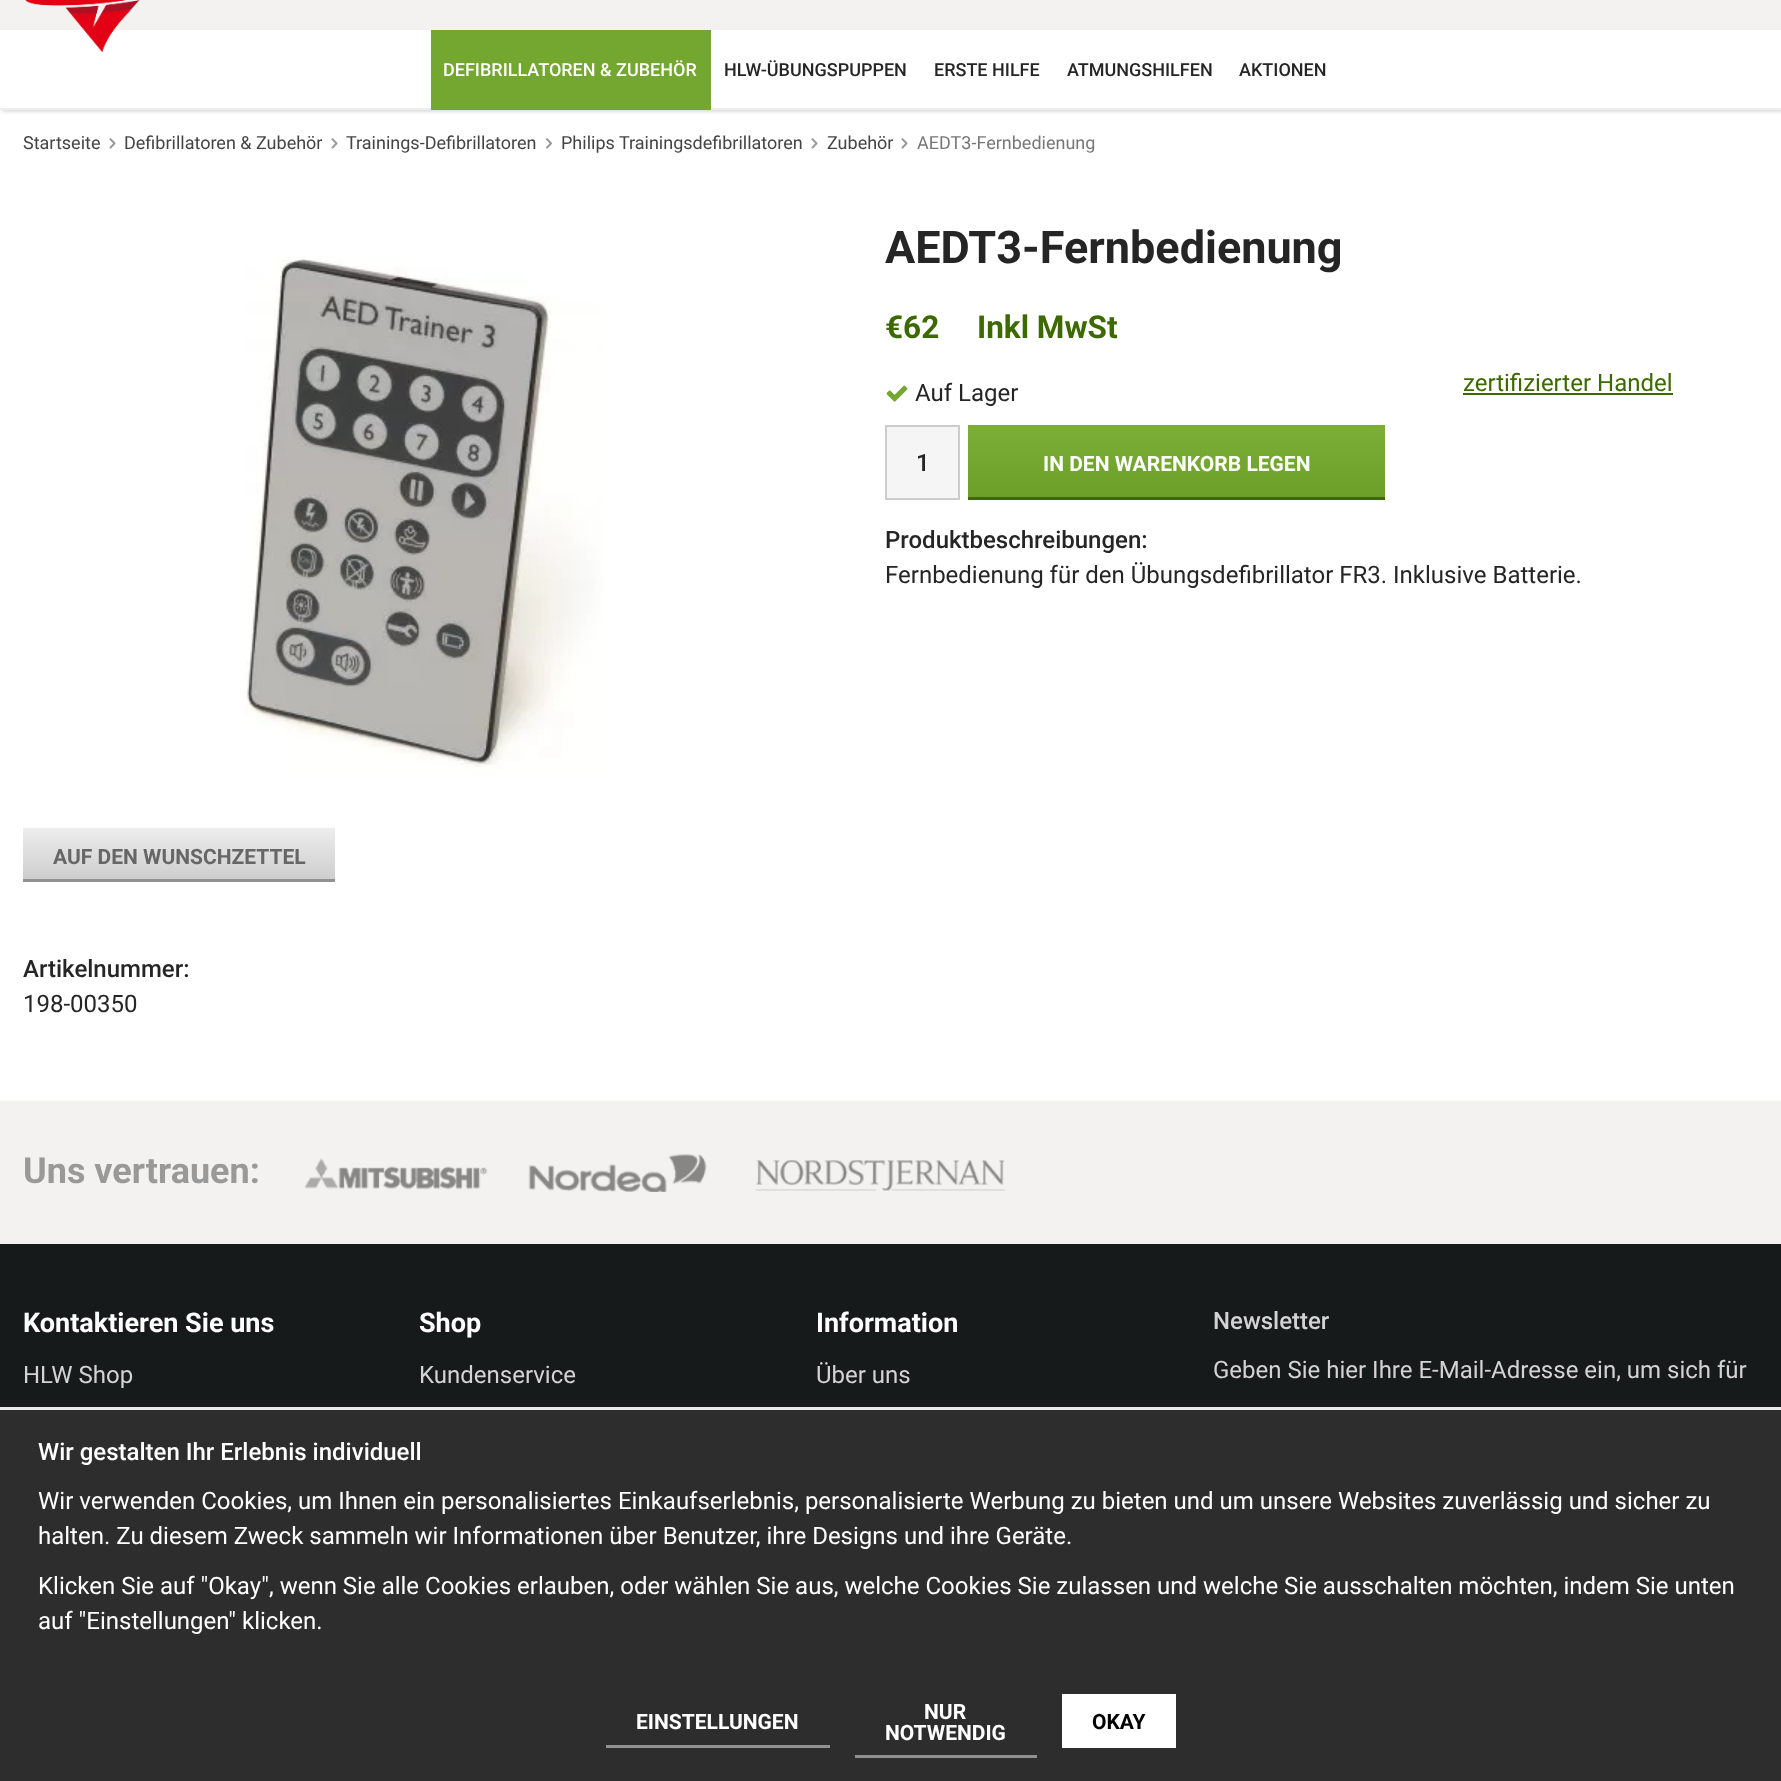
<!DOCTYPE html>
<meta charset="utf-8">
<style>body { margin: 0 } canvas { display: block }</style>
<canvas id="canvas" width="1781" height="1781"></canvas>
<img id="img1" src="img_01.png" hidden>
<img id="img2" src="img_02.png" hidden>
<img id="img3" src="img_03.png" hidden>
<img id="img4" src="img_04.png" hidden>
<img id="img5" src="img_05.png" hidden>
<img id="img6" src="img_06.png" hidden>
<img id="img7" src="img_07.png" hidden>
<img id="img8" src="img_08.png" hidden>
<script>
window.onload = function () {
	const canvas = document.getElementById("canvas");
	const ctx = canvas.getContext("2d");
	ctx.miterLimit = 4;
	ctx.fontKerning = "normal";
	function txt(s, x, y) {
		ctx.fillText(s, x, y);
	}
	function fill(x, y, w, h) {
		ctx.fillRect(x, y, w, h);
	}
	function img(id, x, y, w, h) {
		ctx.drawImage(document.getElementById(id), x, y, w, h);
	}
	let gradient;

	ctx.fillStyle = "#FFFFFF";
	fill(0, 0, 1781, 1781);
	ctx.fillStyle = "rgba(0, 0, 0, 0.2)";
	ctx.filter = "blur(2px)";
	ctx.beginPath();
	ctx.rect(2, 32, 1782, 79);
	ctx.fill();
	ctx.filter = "none";
	ctx.fillStyle = "#F3F2F0";
	fill(0, 0, 1781, 30);
	ctx.fillStyle = "#FFFFFF";
	fill(0, 30, 1781, 78);
	img("img1", 25, 0, 115, 52);
	ctx.fillStyle = "#EEEEEE";
	fill(0, 108, 1781, 2);
	ctx.fillStyle = "#74A730";
	fill(431, 30, 280, 80);
	img("img2", 109, 138, 7, 11);
	img("img2", 331, 138, 7, 11);
	img("img3", 546, 138, 6, 11);
	img("img2", 811, 138, 7, 11);
	img("img2", 901, 138, 7, 11);
	img("img4", 244, 255, 358, 516);
	img("img5", 886, 385, 22, 17);
	ctx.fillStyle = "#F5F5F5";
	ctx.beginPath();
	ctx.rect(886, 426, 73, 73);
	ctx.fill();
	ctx.strokeStyle = "#CCCCCC";
	ctx.lineWidth = 2;
	ctx.stroke();
	gradient = ctx.createLinearGradient(1176, 425, 1176, 497);
	gradient.addColorStop(0, "#7CAF38");
	gradient.addColorStop(1, "#6C9F28");
	ctx.fillStyle = gradient;
	fill(968, 425, 417, 72);
	ctx.fillStyle = "#3C6900";
	fill(968, 497, 417, 3);
	fill(1463, 393, 210, 2);
	gradient = ctx.createLinearGradient(179, 828, 179, 879);
	gradient.addColorStop(0, "#EDEDED");
	gradient.addColorStop(1, "#CECECE");
	ctx.fillStyle = gradient;
	fill(23, 828, 312, 51);
	ctx.fillStyle = "#919191";
	fill(23, 879, 312, 3);
	ctx.fillStyle = "#F3F2F0";
	fill(0, 1101, 1781, 143);
	img("img6", 304, 1158, 184, 32);
	img("img7", 528, 1154, 179, 38);
	img("img8", 755, 1160, 250, 31);
	ctx.fillStyle = "#161A1B";
	fill(0, 1244, 1781, 163);
	ctx.fillStyle = "#2D2D2D";
	fill(0, 1410, 1781, 371);
	ctx.fillStyle = "#E9E9E9";
	fill(0, 1407, 1781, 3);
	ctx.fillStyle = "#919191";
	fill(606, 1745, 224, 3);
	fill(855, 1755, 182, 3);
	ctx.fillStyle = "#FFFFFF";
	fill(1062, 1694, 114, 54);
	ctx.font = "500 18px Roboto";
	txt("DEFIBRILLATOREN & ZUBEHÖR", 443, 76);
	ctx.fillStyle = "#252525";
	txt("HLW-ÜBUNGSPUPPEN", 724, 76);
	txt("ERSTE HILFE", 934, 76);
	txt("ATMUNGSHILFEN", 1067, 76);
	txt("AKTIONEN", 1239, 76);
	ctx.font = "18px Roboto";
	ctx.fillStyle = "#444444";
	txt("Startseite", 23, 149);
	txt("Defibrillatoren & Zubehör", 124, 149);
	txt("Trainings-Defibrillatoren", 346, 149);
	txt("Philips Trainingsdefibrillatoren", 561, 149);
	txt("Zubehör", 827, 149);
	ctx.fillStyle = "#777777";
	txt("AEDT3-Fernbedienung", 917, 149);
	ctx.font = "bold 45px Roboto";
	ctx.fillStyle = "#252525";
	txt("AEDT3-Fernbedienung", 885, 263);
	ctx.font = "bold 31.5px Roboto";
	ctx.fillStyle = "#3C6900";
	txt("€62", 885, 338);
	txt("Inkl MwSt", 977, 338);
	ctx.font = "24px Roboto";
	ctx.fillStyle = "#252525";
	txt("Auf Lager", 915, 401);
	ctx.font = "500 24px Roboto";
	txt("1", 916, 471);
	ctx.font = "bold 21px Roboto";
	ctx.fillStyle = "#FFFFFF";
	txt("IN DEN WARENKORB LEGEN", 1043, 471);
	ctx.font = "24px Roboto";
	ctx.fillStyle = "#3C6900";
	txt("zertifizierter Handel", 1463, 391);
	ctx.font = "500 24px Roboto";
	ctx.fillStyle = "#252525";
	txt("Produktbeschreibungen:", 885, 548);
	ctx.font = "24px Roboto";
	txt("Fernbedienung für den Übungsdefibrillator FR3. Inklusive Batterie.", 885, 583);
	ctx.font = "bold 21px Roboto";
	ctx.fillStyle = "#666666";
	txt("AUF DEN WUNSCHZETTEL", 53, 864);
	ctx.font = "500 24px Roboto";
	ctx.fillStyle = "#252525";
	txt("Artikelnummer:", 23, 977);
	ctx.font = "24px Roboto";
	txt("198-00350", 23, 1012);
	ctx.font = "bold 36px Roboto";
	ctx.fillStyle = "#999999";
	txt("Uns vertrauen:", 23, 1183);
	ctx.font = "bold 27px Roboto";
	ctx.fillStyle = "#FFFFFF";
	txt("Kontaktieren Sie uns", 23, 1332);
	ctx.font = "24px Roboto";
	ctx.fillStyle = "#D3D3D3";
	txt("HLW Shop", 23, 1383);
	ctx.font = "bold 27px Roboto";
	ctx.fillStyle = "#FFFFFF";
	txt("Shop", 419, 1332);
	ctx.font = "24px Roboto";
	ctx.fillStyle = "#D3D3D3";
	txt("Kundenservice", 419, 1383);
	ctx.font = "bold 27px Roboto";
	ctx.fillStyle = "#FFFFFF";
	txt("Information", 816, 1332);
	ctx.font = "24px Roboto";
	ctx.fillStyle = "#D3D3D3";
	txt("Über uns", 816, 1383);
	ctx.font = "500 24px Roboto";
	txt("Newsletter", 1213, 1329);
	ctx.font = "24px Roboto";
	txt("Geben Sie hier Ihre E-Mail-Adresse ein, um sich für", 1213, 1378);
	ctx.font = "500 24px Roboto";
	ctx.fillStyle = "#FFFFFF";
	txt("Wir gestalten Ihr Erlebnis individuell", 38, 1460);
	ctx.font = "24px Roboto";
	txt("Wir verwenden Cookies, um Ihnen ein personalisiertes Einkaufserlebnis, personalisierte Werbung zu bieten und um unsere Websites zuverlässig und sicher zu", 38, 1509);
	txt("halten. Zu diesem Zweck sammeln wir Informationen über Benutzer, ihre Designs und ihre Geräte.", 38, 1544);
	txt("Klicken Sie auf \"Okay\", wenn Sie alle Cookies erlauben, oder wählen Sie aus, welche Cookies Sie zulassen und welche Sie ausschalten möchten, indem Sie unten", 38, 1594);
	txt("auf \"Einstellungen\" klicken.", 38, 1629);
	ctx.font = "bold 21px Roboto";
	txt("EINSTELLUNGEN", 636, 1729);
	txt("NUR", 924, 1719);
	txt("NOTWENDIG", 885, 1740);
	ctx.fillStyle = "#000000";
	txt("OKAY", 1092, 1729);
};
</script>
